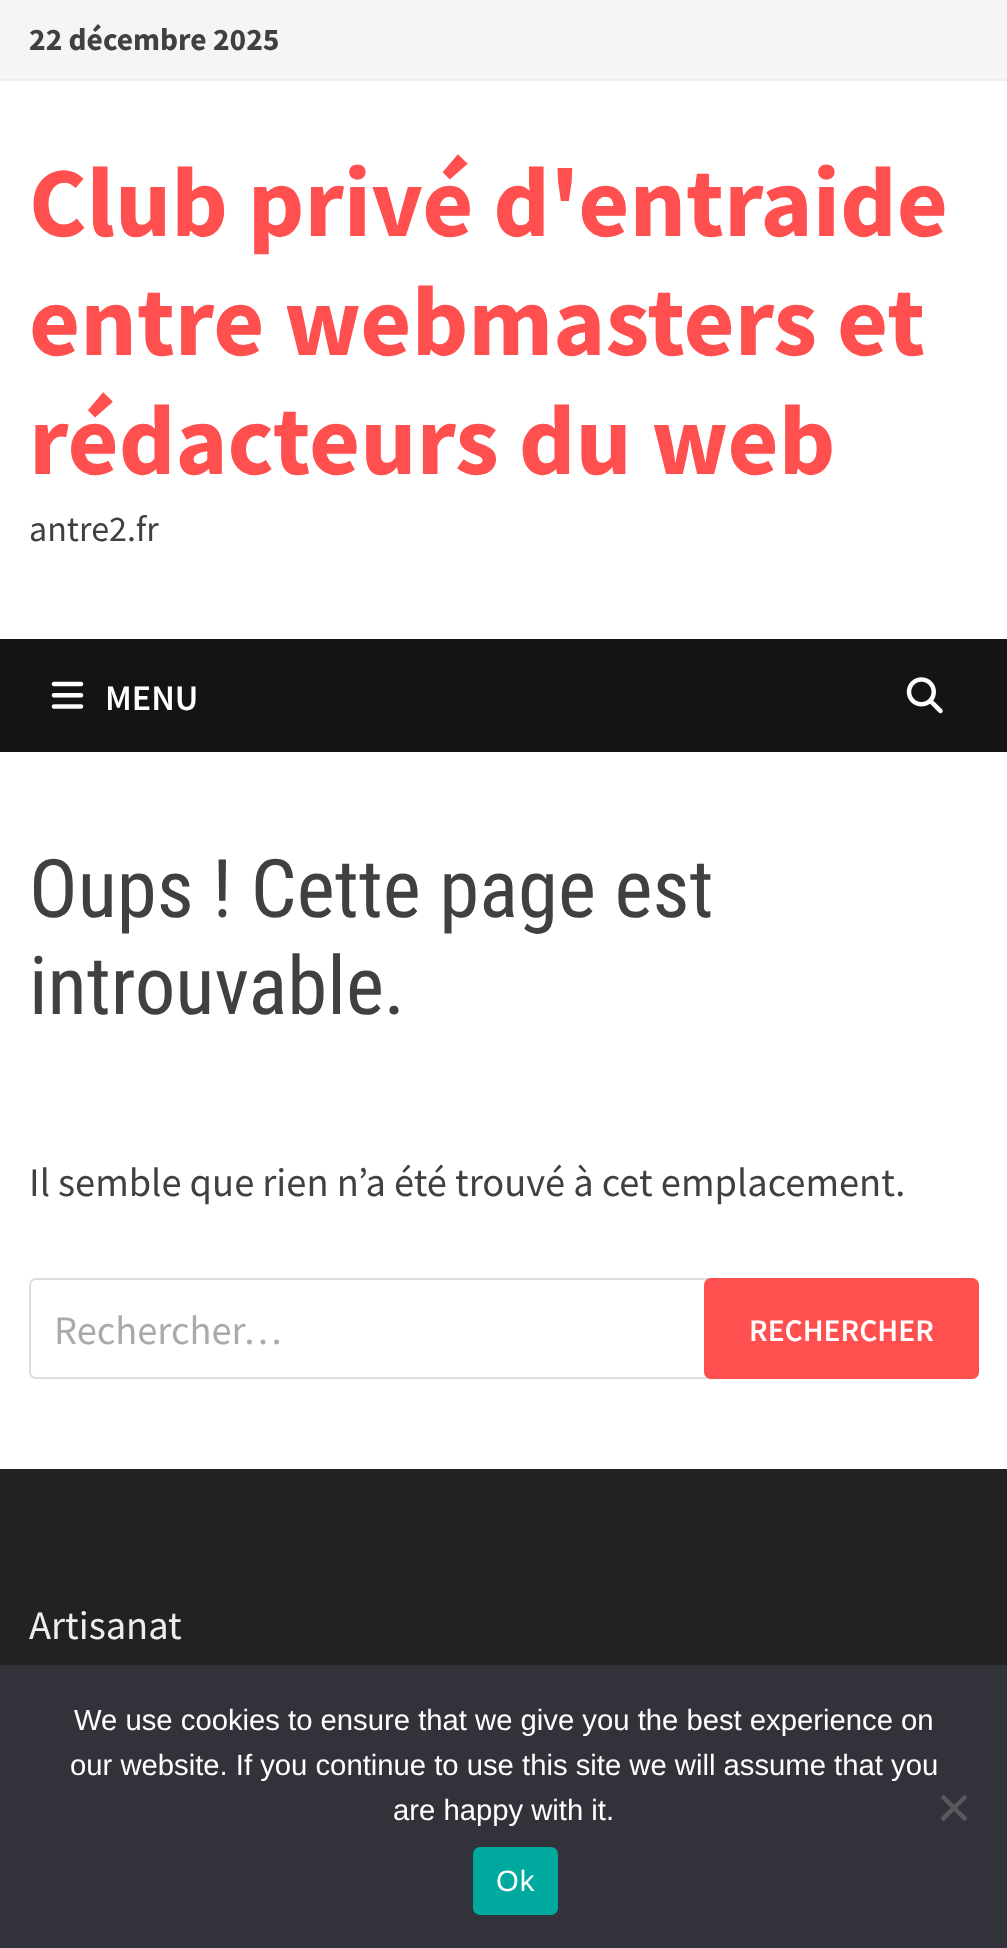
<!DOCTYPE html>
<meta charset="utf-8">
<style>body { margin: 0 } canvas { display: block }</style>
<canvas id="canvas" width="1007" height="1948"></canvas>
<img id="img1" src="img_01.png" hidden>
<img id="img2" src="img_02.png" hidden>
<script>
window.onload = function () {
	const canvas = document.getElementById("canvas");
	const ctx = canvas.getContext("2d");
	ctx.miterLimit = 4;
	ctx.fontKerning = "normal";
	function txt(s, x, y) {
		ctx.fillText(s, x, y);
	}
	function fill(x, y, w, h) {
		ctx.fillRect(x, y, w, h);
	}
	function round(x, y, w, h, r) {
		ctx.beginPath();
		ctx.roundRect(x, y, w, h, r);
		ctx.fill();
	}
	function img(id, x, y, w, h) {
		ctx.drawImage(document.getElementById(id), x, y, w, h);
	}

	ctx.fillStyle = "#FFFFFF";
	fill(0, 0, 1007, 1948);
	ctx.fillStyle = "#F5F5F5";
	fill(0, 0, 1007, 79);
	ctx.fillStyle = "#EEEEEE";
	fill(0, 79, 1007, 2);
	ctx.fillStyle = "#141414";
	fill(0, 639, 1007, 113);
	img("img1", 51, 681, 33, 28);
	img("img2", 906, 677, 37, 37);
	ctx.beginPath();
	ctx.roundRect(30, 1279, 948, 99, 6);
	ctx.strokeStyle = "#DDDDDD";
	ctx.lineWidth = 2;
	ctx.stroke();
	ctx.fillStyle = "#FF4F4F";
	round(704, 1278, 275, 101, 7);
	ctx.fillStyle = "#222222";
	fill(0, 1469, 1007, 196);
	ctx.fillStyle = "#32323A";
	fill(0, 1665, 1007, 283);
	ctx.fillStyle = "#59595D";
	ctx.beginPath();
	ctx.moveTo(964.5, 1794.5);
	ctx.lineTo(967.5, 1797.5);
	ctx.lineTo(943.5, 1821.5);
	ctx.lineTo(940.5, 1818);
	ctx.closePath();
	ctx.fill();
	ctx.beginPath();
	ctx.moveTo(940.5, 1797.5);
	ctx.lineTo(943.5, 1794.5);
	ctx.lineTo(967.5, 1818);
	ctx.lineTo(964.5, 1821.5);
	ctx.closePath();
	ctx.fill();
	ctx.fillStyle = "#00A99D";
	round(473, 1847, 85, 68, 7);
	ctx.font = "bold 31.5px Source Sans Pro";
	ctx.fillStyle = "#404040";
	txt("22 décembre 2025", 29, 50);
	ctx.font = "bold 99px Source Sans Pro";
	ctx.fillStyle = "#FF4F4F";
	txt("Club privé d'entraide", 29, 236);
	txt("entre webmasters et", 29, 355);
	txt("rédacteurs du web", 29, 474);
	ctx.font = "36px Source Sans Pro";
	ctx.fillStyle = "#404040";
	txt("antre2.fr", 29, 541);
	ctx.font = "600 36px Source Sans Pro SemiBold";
	ctx.fillStyle = "#FFFFFF";
	txt("MENU", 105, 710);
	ctx.font = "81px Roboto Condensed";
	ctx.fillStyle = "#404040";
	txt("Oups ! Cette page est", 29, 917);
	txt("introuvable.", 29, 1014);
	ctx.font = "40.5px Source Sans Pro";
	txt("Il semble que rien n’a été trouvé à cet emplacement.", 29, 1196);
	ctx.fillStyle = "#AAAAAA";
	txt("Rechercher…", 54, 1344);
	ctx.font = "600 31.5px Source Sans Pro SemiBold";
	ctx.fillStyle = "#FFFFFF";
	txt("RECHERCHER", 749, 1341);
	ctx.font = "40.5px Source Sans Pro";
	ctx.fillStyle = "#EEEEEE";
	txt("Artisanat", 29, 1639);
	ctx.font = "29.25px Liberation Sans";
	ctx.fillStyle = "#FFFFFF";
	txt("We use cookies to ensure that we give you the best experience on", 74, 1730);
	txt("our website. If you continue to use this site we will assume that you", 70, 1775);
	txt("are happy with it.", 393, 1820);
	ctx.letterSpacing = "1px";
	txt("Ok", 496, 1891);
};
</script>
